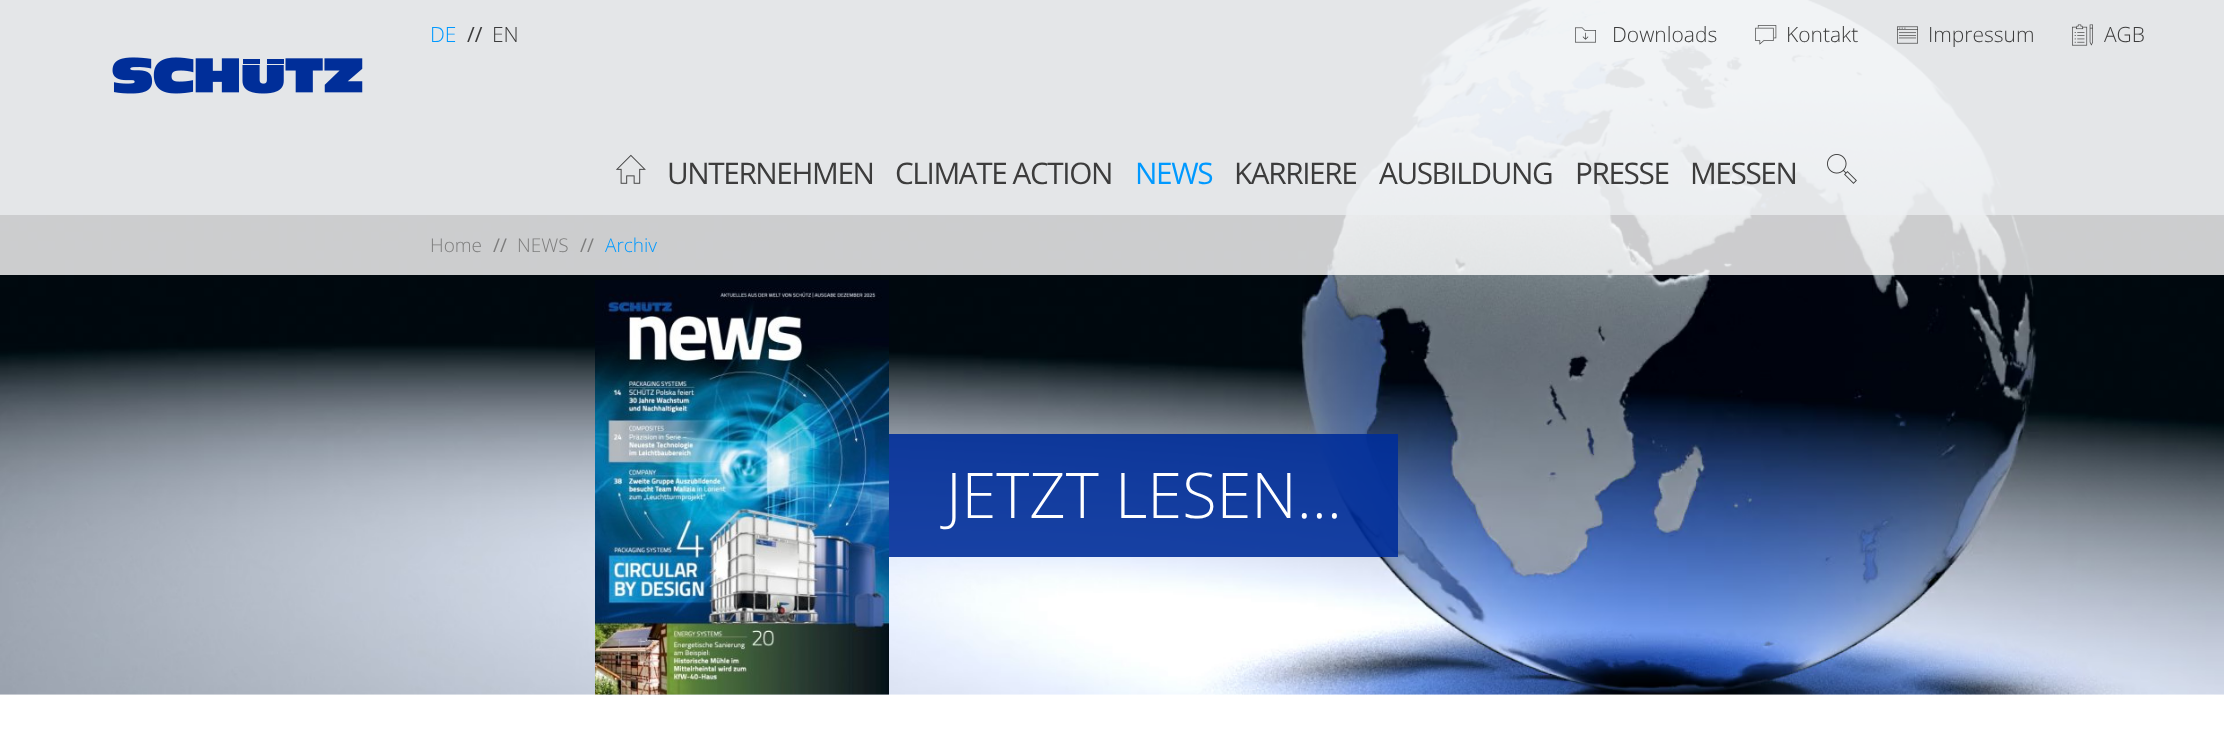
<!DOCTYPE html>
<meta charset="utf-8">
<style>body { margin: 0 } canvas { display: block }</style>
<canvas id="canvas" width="2224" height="731"></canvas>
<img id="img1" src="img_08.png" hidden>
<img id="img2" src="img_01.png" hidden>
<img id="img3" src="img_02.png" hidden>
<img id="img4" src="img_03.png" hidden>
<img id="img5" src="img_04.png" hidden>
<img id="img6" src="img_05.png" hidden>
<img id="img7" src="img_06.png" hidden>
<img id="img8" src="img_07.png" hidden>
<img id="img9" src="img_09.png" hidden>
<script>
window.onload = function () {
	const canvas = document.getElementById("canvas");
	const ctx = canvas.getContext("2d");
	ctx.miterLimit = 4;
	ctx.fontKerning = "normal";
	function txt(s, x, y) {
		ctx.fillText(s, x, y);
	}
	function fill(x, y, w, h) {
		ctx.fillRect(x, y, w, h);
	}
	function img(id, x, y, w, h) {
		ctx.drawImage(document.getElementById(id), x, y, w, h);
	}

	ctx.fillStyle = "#FFFFFF";
	fill(0, 0, 2224, 731);
	img("img1", 0, 0, 2224, 695);
	ctx.fillStyle = "rgba(240, 242, 244, 0.95)";
	fill(0, 0, 2224, 215);
	img("img2", 1575, 27, 21, 16);
	img("img3", 1755, 25, 22, 20);
	img("img4", 1897, 26, 21, 18);
	img("img5", 2072, 24, 21, 22);
	img("img6", 112, 57, 251, 37);
	img("img7", 616, 154, 30, 30);
	img("img8", 1827, 154, 30, 30);
	ctx.fillStyle = "rgba(255, 255, 255, 0.8)";
	fill(0, 215, 2224, 60);
	img("img9", 595, 280, 294, 415);
	ctx.fillStyle = "rgba(0, 46, 153, 0.9)";
	fill(889, 434, 509, 123);
	ctx.font = "300 21px Open Sans";
	ctx.fillStyle = "#0099FF";
	txt("DE", 430, 42);
	ctx.font = "21px Open Sans";
	ctx.fillStyle = "#3C3C3C";
	txt("//", 467, 42);
	ctx.font = "300 21px Open Sans";
	txt("EN", 492, 42);
	txt("Downloads", 1612, 42);
	txt("Kontakt", 1786, 42);
	txt("Impressum", 1928, 42);
	txt("AGB", 2104, 42);
	ctx.letterSpacing = "-1.4px";
	ctx.font = "29.75px Open Sans";
	txt("UNTERNEHMEN", 667, 184);
	txt("CLIMATE ACTION", 895, 184);
	ctx.fillStyle = "#0099FF";
	txt("NEWS", 1135, 184);
	ctx.fillStyle = "#3C3C3C";
	txt("KARRIERE", 1234, 184);
	txt("AUSBILDUNG", 1379, 184);
	txt("PRESSE", 1575, 184);
	txt("MESSEN", 1690, 184);
	ctx.letterSpacing = "0px";
	ctx.font = "300 19px Open Sans";
	ctx.fillStyle = "#7D7D7D";
	txt("Home", 430, 252);
	ctx.font = "19px Open Sans";
	txt("//", 493, 252);
	ctx.font = "300 19px Open Sans";
	txt("NEWS", 517, 252);
	ctx.font = "19px Open Sans";
	txt("//", 580, 252);
	ctx.font = "300 19px Open Sans";
	ctx.fillStyle = "#0099FF";
	txt("Archiv", 605, 252);
	ctx.font = "300 63px Open Sans";
	ctx.fillStyle = "#FFFFFF";
	txt("JETZT LESEN…", 946, 518);
};
</script>
